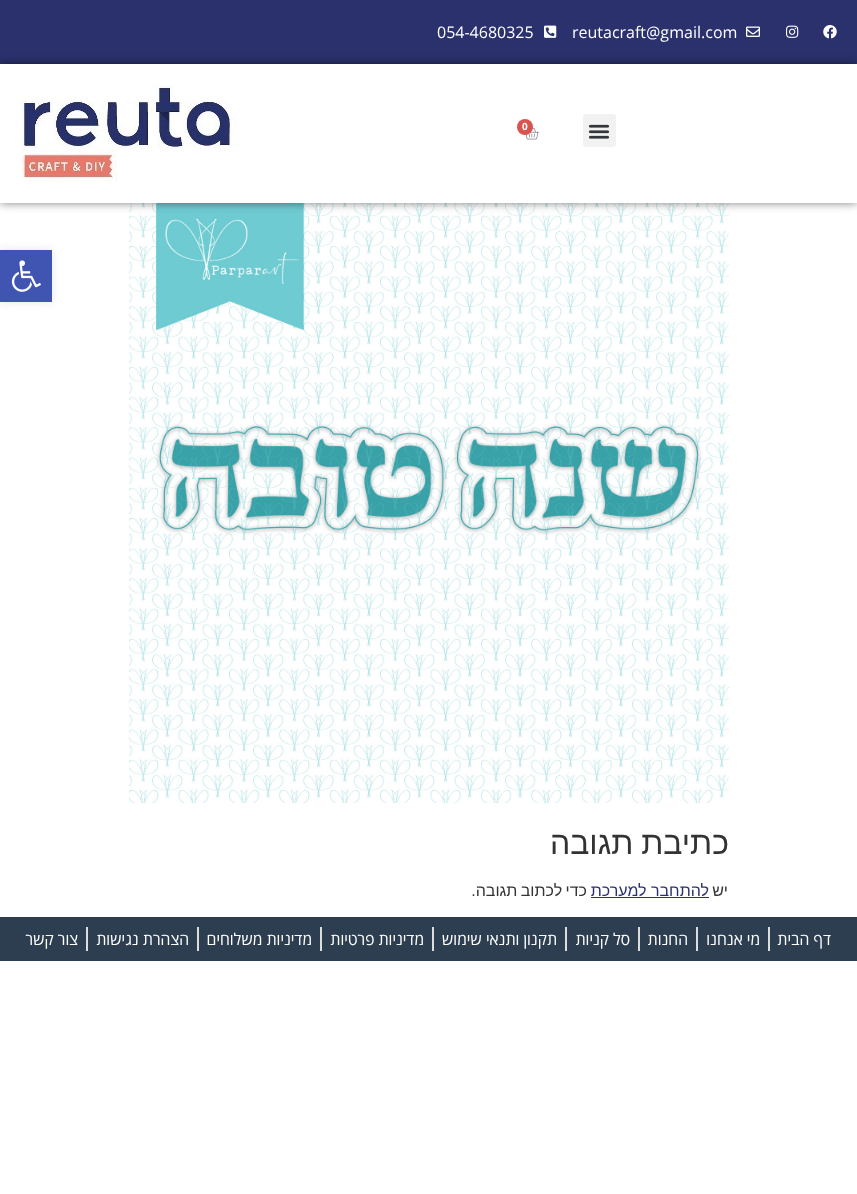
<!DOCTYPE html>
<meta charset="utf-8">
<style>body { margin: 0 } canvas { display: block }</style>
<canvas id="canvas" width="857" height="1194"></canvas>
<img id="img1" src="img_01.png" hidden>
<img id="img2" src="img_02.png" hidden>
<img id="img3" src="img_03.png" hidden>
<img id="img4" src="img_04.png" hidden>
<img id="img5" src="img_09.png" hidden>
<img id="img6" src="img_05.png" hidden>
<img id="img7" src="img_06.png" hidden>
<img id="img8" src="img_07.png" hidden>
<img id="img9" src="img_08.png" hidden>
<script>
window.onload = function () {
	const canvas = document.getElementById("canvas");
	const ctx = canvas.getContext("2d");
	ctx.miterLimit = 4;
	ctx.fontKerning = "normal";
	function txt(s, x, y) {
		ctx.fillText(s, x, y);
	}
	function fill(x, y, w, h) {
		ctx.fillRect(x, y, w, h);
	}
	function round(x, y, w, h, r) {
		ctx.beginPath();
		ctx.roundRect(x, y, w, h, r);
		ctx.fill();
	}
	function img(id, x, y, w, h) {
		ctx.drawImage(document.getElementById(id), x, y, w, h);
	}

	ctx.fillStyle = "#FFFFFF";
	fill(0, 0, 857, 1194);
	ctx.fillStyle = "#2A316C";
	fill(0, 0, 857, 64);
	img("img1", 823, 25, 14, 14);
	img("img2", 786, 25, 13, 13);
	img("img3", 746, 26, 14, 11);
	img("img4", 544, 25, 13, 13);
	img("img5", 129, 203, 600, 600);
	ctx.save();
	ctx.beginPath();
	ctx.moveTo(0, 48);
	ctx.lineTo(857, 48);
	ctx.lineTo(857, 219);
	ctx.lineTo(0, 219);
	ctx.closePath();
	ctx.moveTo(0, 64);
	ctx.lineTo(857, 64);
	ctx.lineTo(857, 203);
	ctx.lineTo(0, 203);
	ctx.closePath();
	ctx.clip("evenodd");
	ctx.fillStyle = "rgba(0, 0, 0, 0.5)";
	ctx.filter = "blur(5px)";
	ctx.beginPath();
	ctx.rect(0, 64, 857, 139);
	ctx.fill();
	ctx.filter = "none";
	ctx.restore();
	ctx.fillStyle = "#F2F2F2";
	round(583, 114, 33, 33, 3);
	img("img6", 588, 124, 22, 15);
	img("img7", 525, 128, 14, 12);
	ctx.fillStyle = "#D9534F";
	ctx.beginPath();
	ctx.arc(525, 127, 8, 0, Math.PI * 2);
	ctx.fill();
	img("img8", 21, 85, 219, 97);
	ctx.fillStyle = "rgba(0, 0, 0, 0.1)";
	ctx.filter = "blur(5px)";
	ctx.beginPath();
	ctx.rect(0, 250, 52, 52);
	ctx.fill();
	ctx.filter = "none";
	ctx.fillStyle = "#4054B2";
	fill(0, 250, 52, 52);
	img("img9", 11, 260, 30, 32);
	ctx.fillStyle = "#2A316C";
	fill(591, 897, 118, 1);
	ctx.fillStyle = "#2C3E50";
	fill(0, 917, 857, 44);
	ctx.fillStyle = "#DDDDDD";
	fill(768, 927, 2, 24);
	fill(696, 927, 2, 24);
	fill(638, 927, 2, 24);
	fill(565, 927, 2, 24);
	fill(432, 927, 2, 24);
	fill(320, 927, 2, 24);
	fill(197, 927, 2, 24);
	fill(86, 927, 2, 24);
	ctx.font = "16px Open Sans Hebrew";
	ctx.fillStyle = "#FFFFFF";
	txt("reutacraft@gmail.com", 572, 38);
	txt("054-4680325", 437, 38);
	ctx.font = "bold 10px Open Sans Hebrew";
	txt("0", 522, 130);
	ctx.wordSpacing = "-1px";
	ctx.direction = "rtl";
	ctx.font = "32px Liberation Sans";
	ctx.fillStyle = "#333333";
	txt("כתיבת תגובה", 729, 854);
	ctx.wordSpacing = "0px";
	ctx.font = "16px Liberation Sans";
	txt("יש", 728, 896);
	ctx.fillStyle = "#2A316C";
	txt("להתחבר למערכת", 709, 896);
	ctx.wordSpacing = "-1px";
	ctx.fillStyle = "#333333";
	txt("כדי לכתוב תגובה.", 587, 896);
	ctx.wordSpacing = "0px";
	ctx.font = "16px Open Sans Hebrew";
	ctx.fillStyle = "#FFFFFF";
	txt("דף הבית", 831, 945);
	txt("מי אנחנו", 760, 945);
	txt("החנות", 688, 945);
	txt("סל קניות", 630, 945);
	txt("תקנון ותנאי שימוש", 557, 945);
	txt("מדיניות פרטיות", 424, 945);
	txt("מדיניות משלוחים", 312, 945);
	txt("הצהרת נגישות", 189, 945);
	txt("צור קשר", 78, 945);
};
</script>
